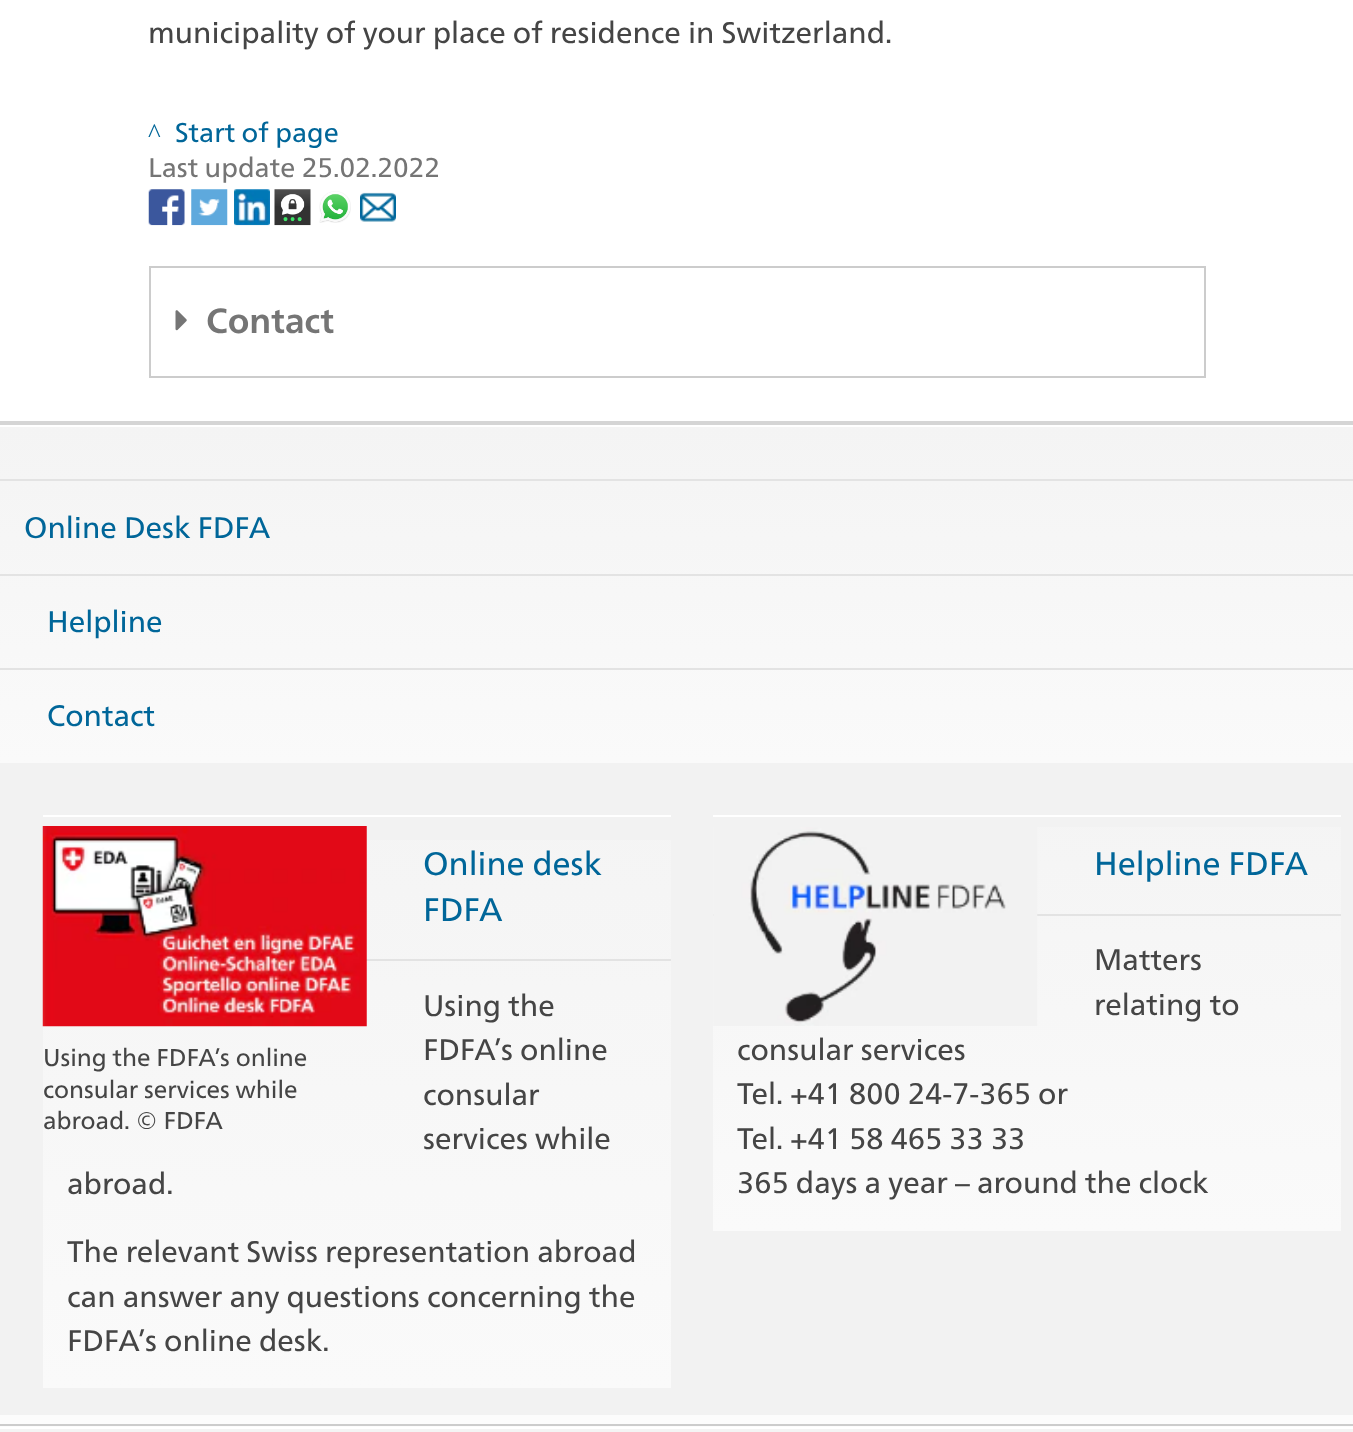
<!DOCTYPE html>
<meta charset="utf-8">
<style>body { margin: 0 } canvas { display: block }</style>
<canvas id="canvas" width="1353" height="1432"></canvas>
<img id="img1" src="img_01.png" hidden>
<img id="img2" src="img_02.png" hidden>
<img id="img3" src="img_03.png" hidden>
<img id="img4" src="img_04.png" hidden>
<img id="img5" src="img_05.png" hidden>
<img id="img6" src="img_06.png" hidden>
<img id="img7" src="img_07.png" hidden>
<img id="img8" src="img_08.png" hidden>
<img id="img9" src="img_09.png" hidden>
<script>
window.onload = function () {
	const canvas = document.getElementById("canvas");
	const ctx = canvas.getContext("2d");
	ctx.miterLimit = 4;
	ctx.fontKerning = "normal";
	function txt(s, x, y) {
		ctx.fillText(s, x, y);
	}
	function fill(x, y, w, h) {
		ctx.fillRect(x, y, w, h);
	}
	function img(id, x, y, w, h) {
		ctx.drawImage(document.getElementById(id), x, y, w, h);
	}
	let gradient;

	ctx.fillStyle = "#FFFFFF";
	fill(0, 0, 1353, 1432);
	img("img1", 148, 189, 37, 37);
	img("img2", 191, 189, 37, 37);
	img("img3", 234, 189, 36, 37);
	img("img4", 274, 189, 37, 37);
	img("img5", 319, 191, 32, 32);
	img("img6", 360, 192, 36, 30);
	ctx.fillStyle = "#CCCCCC";
	fill(149, 376, 1057, 2);
	fill(149, 266, 1057, 2);
	fill(1204, 266, 2, 110);
	fill(149, 266, 2, 110);
	img("img7", 175, 310, 12, 21);
	ctx.fillStyle = "#F2F2F2";
	fill(0, 763, 1353, 652);
	ctx.fillStyle = "#D5D5D5";
	fill(0, 421, 1353, 4);
	gradient = ctx.createLinearGradient(677, 425, 677, 763);
	gradient.addColorStop(0, "#F4F4F4");
	gradient.addColorStop(1, "#FAFAFA");
	ctx.fillStyle = gradient;
	fill(0, 427, 1353, 336);
	ctx.fillStyle = "#E3E3E3";
	fill(0, 479, 1353, 2);
	fill(0, 574, 1353, 2);
	fill(0, 668, 1353, 2);
	gradient = ctx.createLinearGradient(357, 790, 357, 1388);
	gradient.addColorStop(0, "#F4F4F4");
	gradient.addColorStop(1, "#FAFAFA");
	ctx.fillStyle = gradient;
	fill(43, 840, 628, 548);
	ctx.fillStyle = "#FFFFFF";
	fill(43, 815, 628, 2);
	ctx.fillStyle = "#E3E3E3";
	fill(366, 959, 305, 2);
	img("img8", 42, 826, 325, 201);
	gradient = ctx.createLinearGradient(1027, 790, 1027, 1231);
	gradient.addColorStop(0, "#F4F4F4");
	gradient.addColorStop(1, "#FAFAFA");
	ctx.fillStyle = gradient;
	fill(713, 827, 628, 404);
	ctx.fillStyle = "#E3E3E3";
	fill(713, 914, 628, 2);
	img("img9", 713, 827, 325, 199);
	ctx.fillStyle = "#FFFFFF";
	fill(713, 815, 628, 2);
	ctx.fillStyle = "#FCFCFC";
	fill(0, 1415, 1353, 9);
	fill(0, 1426, 1353, 1);
	ctx.fillStyle = "#CCCCCC";
	fill(0, 1424, 1353, 2);
	gradient = ctx.createLinearGradient(677, 1427, 677, 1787);
	gradient.addColorStop(0, "#F4F4F4");
	gradient.addColorStop(1, "#FAFAFA");
	ctx.fillStyle = gradient;
	fill(0, 1429, 1353, 3);
	ctx.font = "29.7px 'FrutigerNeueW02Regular'";
	ctx.fillStyle = "#454545";
	txt("municipality of your place of residence in Switzerland.", 148, 43);
	ctx.font = "27px Liberation Serif";
	ctx.fillStyle = "#006699";
	txt("^", 148, 142);
	ctx.font = "27px 'FrutigerNeueW02Regular'";
	txt("Start of page", 175, 142);
	ctx.fillStyle = "#757575";
	txt("Last update 25.02.2022", 148, 177);
	ctx.font = "bold 35px 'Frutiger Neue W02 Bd'";
	txt("Contact", 206, 333);
	ctx.font = "29.7px 'FrutigerNeueW02Regular'";
	ctx.fillStyle = "#006699";
	txt("Online Desk FDFA", 24, 538);
	txt("Helpline", 47, 632);
	txt("Contact", 47, 726);
	ctx.font = "32.5px 'FrutigerNeueW02Regular'";
	txt("Online desk", 423, 875);
	txt("FDFA", 423, 921);
	ctx.font = "29.7px 'FrutigerNeueW02Regular'";
	ctx.fillStyle = "#454545";
	txt("Using the", 423, 1016);
	txt("FDFA’s online", 423, 1060);
	txt("consular", 423, 1105);
	txt("services while", 423, 1149);
	txt("abroad.", 67, 1194);
	ctx.font = "24.25px 'FrutigerNeueW02Regular'";
	txt("Using the FDFA’s online", 43, 1066);
	txt("consular services while", 43, 1098);
	txt("abroad. © FDFA", 43, 1129);
	ctx.font = "29.7px 'FrutigerNeueW02Regular'";
	txt("The relevant Swiss representation abroad", 67, 1262);
	txt("can answer any questions concerning the", 67, 1307);
	txt("FDFA’s online desk.", 67, 1351);
	ctx.font = "32.5px 'FrutigerNeueW02Regular'";
	ctx.fillStyle = "#006699";
	txt("Helpline FDFA", 1094, 875);
	ctx.font = "29.7px 'FrutigerNeueW02Regular'";
	ctx.fillStyle = "#454545";
	txt("Matters", 1094, 970);
	txt("relating to", 1094, 1015);
	txt("consular services", 737, 1060);
	txt("Tel. +41 800 24-7-365 or", 737, 1104);
	txt("Tel. +41 58 465 33 33", 737, 1149);
	txt("365 days a year – around the clock", 737, 1193);
};
</script>
